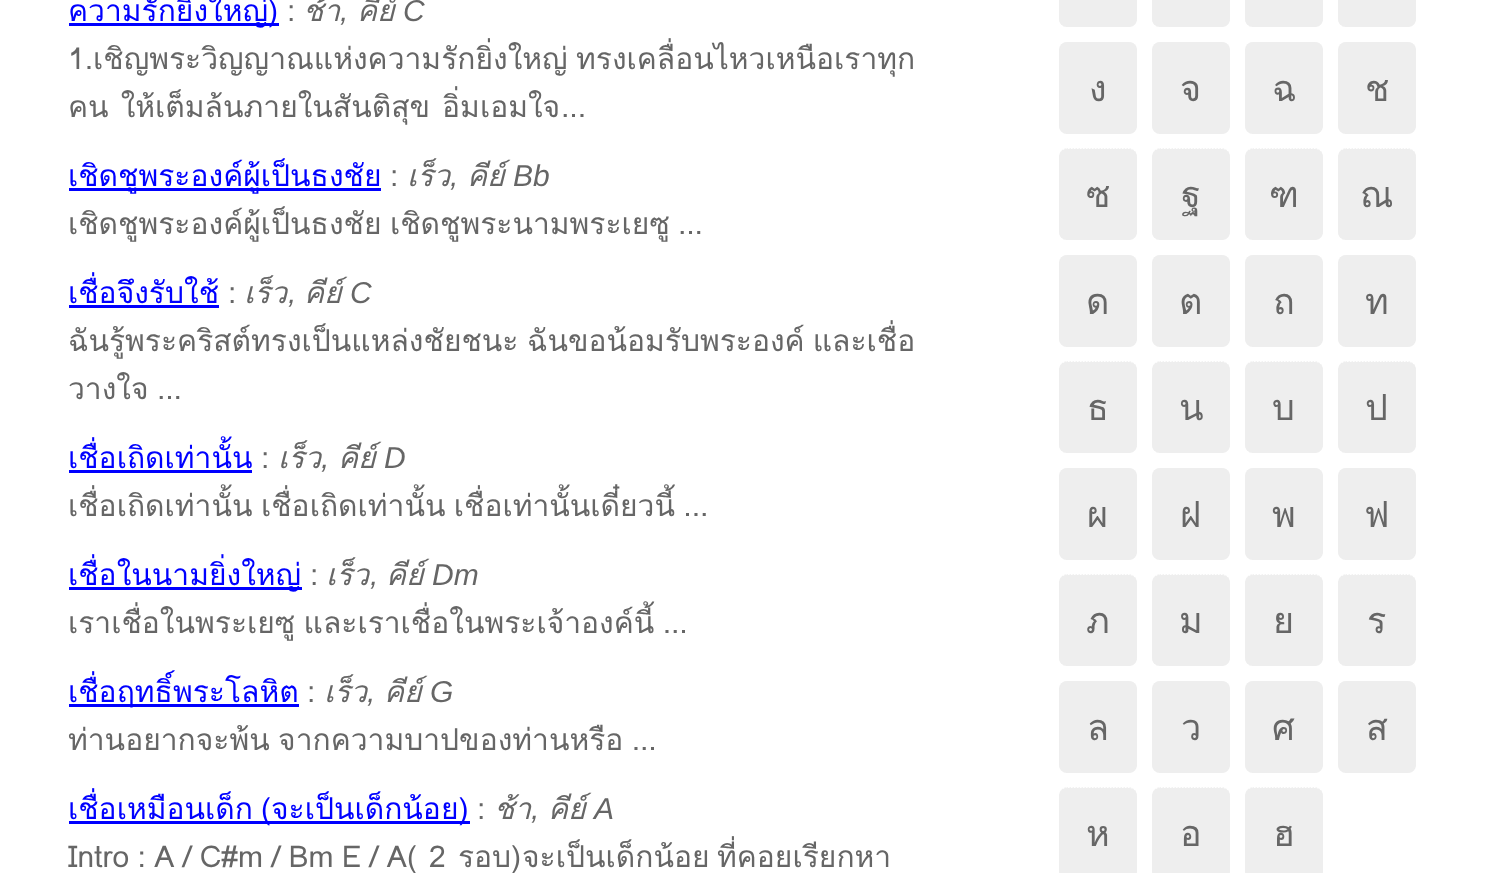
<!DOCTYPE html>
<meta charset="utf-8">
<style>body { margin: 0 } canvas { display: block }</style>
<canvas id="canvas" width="1495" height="873"></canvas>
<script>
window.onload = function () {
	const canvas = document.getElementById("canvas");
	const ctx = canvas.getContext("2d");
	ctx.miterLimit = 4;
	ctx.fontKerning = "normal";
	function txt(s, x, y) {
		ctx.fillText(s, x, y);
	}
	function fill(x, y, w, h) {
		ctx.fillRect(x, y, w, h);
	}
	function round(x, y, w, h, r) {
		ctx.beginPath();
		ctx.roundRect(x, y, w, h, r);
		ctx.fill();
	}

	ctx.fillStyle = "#FFFFFF";
	fill(0, 0, 1495, 873);
	ctx.fillStyle = "#0000FF";
	fill(69, 23, 210, 3);
	fill(69, 188, 312, 3);
	fill(69, 305, 150, 3);
	fill(69, 470, 183, 3);
	fill(69, 587, 233, 3);
	fill(69, 704, 230, 3);
	fill(69, 821, 401, 3);
	ctx.fillStyle = "#EEEEEE";
	round(1059, -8, 78, 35, 8);
	ctx.beginPath();
	ctx.moveTo(1066.5, -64);
	ctx.lineTo(1129.5, -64);
	ctx.bezierCurveTo(1133, -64, 1136, -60.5, 1136, -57);
	ctx.lineTo(1136, 19.5);
	ctx.bezierCurveTo(1136, 23, 1133, 26, 1129.5, 26);
	ctx.lineTo(1066.5, 26);
	ctx.bezierCurveTo(1063, 26, 1060, 23, 1060, 19.5);
	ctx.lineTo(1060, -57);
	ctx.bezierCurveTo(1060, -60.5, 1063, -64, 1066.5, -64);
	ctx.closePath();
	ctx.strokeStyle = "#EEEEEE";
	ctx.lineWidth = 1.5;
	ctx.setLineDash([1.5, 1.5]);
	ctx.stroke();
	round(1152, -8, 78, 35, 8);
	ctx.beginPath();
	ctx.moveTo(1159.5, -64);
	ctx.lineTo(1222.5, -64);
	ctx.bezierCurveTo(1226, -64, 1229, -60.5, 1229, -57);
	ctx.lineTo(1229, 19.5);
	ctx.bezierCurveTo(1229, 23, 1226, 26, 1222.5, 26);
	ctx.lineTo(1159.5, 26);
	ctx.bezierCurveTo(1156, 26, 1153, 23, 1153, 19.5);
	ctx.lineTo(1153, -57);
	ctx.bezierCurveTo(1153, -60.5, 1156, -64, 1159.5, -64);
	ctx.closePath();
	ctx.stroke();
	round(1245, -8, 78, 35, 8);
	ctx.beginPath();
	ctx.moveTo(1252.5, -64);
	ctx.lineTo(1315.5, -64);
	ctx.bezierCurveTo(1319, -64, 1322, -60.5, 1322, -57);
	ctx.lineTo(1322, 19.5);
	ctx.bezierCurveTo(1322, 23, 1319, 26, 1315.5, 26);
	ctx.lineTo(1252.5, 26);
	ctx.bezierCurveTo(1249, 26, 1246, 23, 1246, 19.5);
	ctx.lineTo(1246, -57);
	ctx.bezierCurveTo(1246, -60.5, 1249, -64, 1252.5, -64);
	ctx.closePath();
	ctx.stroke();
	round(1338, -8, 78, 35, 8);
	ctx.beginPath();
	ctx.moveTo(1345.5, -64);
	ctx.lineTo(1408.5, -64);
	ctx.bezierCurveTo(1412, -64, 1415, -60.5, 1415, -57);
	ctx.lineTo(1415, 19.5);
	ctx.bezierCurveTo(1415, 23, 1412, 26, 1408.5, 26);
	ctx.lineTo(1345.5, 26);
	ctx.bezierCurveTo(1342, 26, 1339, 23, 1339, 19.5);
	ctx.lineTo(1339, -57);
	ctx.bezierCurveTo(1339, -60.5, 1342, -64, 1345.5, -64);
	ctx.closePath();
	ctx.stroke();
	round(1059, 42, 78, 92, 8);
	ctx.beginPath();
	ctx.moveTo(1066.5, 43);
	ctx.lineTo(1129.5, 43);
	ctx.bezierCurveTo(1133, 43, 1136, 46, 1136, 49.5);
	ctx.lineTo(1136, 126);
	ctx.bezierCurveTo(1136, 129.5, 1133, 133, 1129.5, 133);
	ctx.lineTo(1066.5, 133);
	ctx.bezierCurveTo(1063, 133, 1060, 129.5, 1060, 126);
	ctx.lineTo(1060, 49.5);
	ctx.bezierCurveTo(1060, 46, 1063, 43, 1066.5, 43);
	ctx.closePath();
	ctx.stroke();
	round(1152, 42, 78, 92, 8);
	ctx.beginPath();
	ctx.moveTo(1159.5, 43);
	ctx.lineTo(1222.5, 43);
	ctx.bezierCurveTo(1226, 43, 1229, 46, 1229, 49.5);
	ctx.lineTo(1229, 126);
	ctx.bezierCurveTo(1229, 129.5, 1226, 133, 1222.5, 133);
	ctx.lineTo(1159.5, 133);
	ctx.bezierCurveTo(1156, 133, 1153, 129.5, 1153, 126);
	ctx.lineTo(1153, 49.5);
	ctx.bezierCurveTo(1153, 46, 1156, 43, 1159.5, 43);
	ctx.closePath();
	ctx.stroke();
	round(1245, 42, 78, 92, 8);
	ctx.beginPath();
	ctx.moveTo(1252.5, 43);
	ctx.lineTo(1315.5, 43);
	ctx.bezierCurveTo(1319, 43, 1322, 46, 1322, 49.5);
	ctx.lineTo(1322, 126);
	ctx.bezierCurveTo(1322, 129.5, 1319, 133, 1315.5, 133);
	ctx.lineTo(1252.5, 133);
	ctx.bezierCurveTo(1249, 133, 1246, 129.5, 1246, 126);
	ctx.lineTo(1246, 49.5);
	ctx.bezierCurveTo(1246, 46, 1249, 43, 1252.5, 43);
	ctx.closePath();
	ctx.stroke();
	round(1338, 42, 78, 92, 8);
	ctx.beginPath();
	ctx.moveTo(1345.5, 43);
	ctx.lineTo(1408.5, 43);
	ctx.bezierCurveTo(1412, 43, 1415, 46, 1415, 49.5);
	ctx.lineTo(1415, 126);
	ctx.bezierCurveTo(1415, 129.5, 1412, 133, 1408.5, 133);
	ctx.lineTo(1345.5, 133);
	ctx.bezierCurveTo(1342, 133, 1339, 129.5, 1339, 126);
	ctx.lineTo(1339, 49.5);
	ctx.bezierCurveTo(1339, 46, 1342, 43, 1345.5, 43);
	ctx.closePath();
	ctx.stroke();
	round(1059, 149, 78, 91, 8);
	ctx.beginPath();
	ctx.moveTo(1066.5, 149);
	ctx.lineTo(1129.5, 149);
	ctx.bezierCurveTo(1133, 149, 1136, 152.5, 1136, 156);
	ctx.lineTo(1136, 232.5);
	ctx.bezierCurveTo(1136, 236, 1133, 239, 1129.5, 239);
	ctx.lineTo(1066.5, 239);
	ctx.bezierCurveTo(1063, 239, 1060, 236, 1060, 232.5);
	ctx.lineTo(1060, 156);
	ctx.bezierCurveTo(1060, 152.5, 1063, 149, 1066.5, 149);
	ctx.closePath();
	ctx.stroke();
	round(1152, 149, 78, 91, 8);
	ctx.beginPath();
	ctx.moveTo(1159.5, 149);
	ctx.lineTo(1222.5, 149);
	ctx.bezierCurveTo(1226, 149, 1229, 152.5, 1229, 156);
	ctx.lineTo(1229, 232.5);
	ctx.bezierCurveTo(1229, 236, 1226, 239, 1222.5, 239);
	ctx.lineTo(1159.5, 239);
	ctx.bezierCurveTo(1156, 239, 1153, 236, 1153, 232.5);
	ctx.lineTo(1153, 156);
	ctx.bezierCurveTo(1153, 152.5, 1156, 149, 1159.5, 149);
	ctx.closePath();
	ctx.stroke();
	round(1245, 149, 78, 91, 8);
	ctx.beginPath();
	ctx.moveTo(1252.5, 149);
	ctx.lineTo(1315.5, 149);
	ctx.bezierCurveTo(1319, 149, 1322, 152.5, 1322, 156);
	ctx.lineTo(1322, 232.5);
	ctx.bezierCurveTo(1322, 236, 1319, 239, 1315.5, 239);
	ctx.lineTo(1252.5, 239);
	ctx.bezierCurveTo(1249, 239, 1246, 236, 1246, 232.5);
	ctx.lineTo(1246, 156);
	ctx.bezierCurveTo(1246, 152.5, 1249, 149, 1252.5, 149);
	ctx.closePath();
	ctx.stroke();
	round(1338, 149, 78, 91, 8);
	ctx.beginPath();
	ctx.moveTo(1345.5, 149);
	ctx.lineTo(1408.5, 149);
	ctx.bezierCurveTo(1412, 149, 1415, 152.5, 1415, 156);
	ctx.lineTo(1415, 232.5);
	ctx.bezierCurveTo(1415, 236, 1412, 239, 1408.5, 239);
	ctx.lineTo(1345.5, 239);
	ctx.bezierCurveTo(1342, 239, 1339, 236, 1339, 232.5);
	ctx.lineTo(1339, 156);
	ctx.bezierCurveTo(1339, 152.5, 1342, 149, 1345.5, 149);
	ctx.closePath();
	ctx.stroke();
	round(1059, 255, 78, 92, 8);
	ctx.beginPath();
	ctx.moveTo(1066.5, 256);
	ctx.lineTo(1129.5, 256);
	ctx.bezierCurveTo(1133, 256, 1136, 259, 1136, 262.5);
	ctx.lineTo(1136, 339);
	ctx.bezierCurveTo(1136, 342.5, 1133, 346, 1129.5, 346);
	ctx.lineTo(1066.5, 346);
	ctx.bezierCurveTo(1063, 346, 1060, 342.5, 1060, 339);
	ctx.lineTo(1060, 262.5);
	ctx.bezierCurveTo(1060, 259, 1063, 256, 1066.5, 256);
	ctx.closePath();
	ctx.stroke();
	round(1152, 255, 78, 92, 8);
	ctx.beginPath();
	ctx.moveTo(1159.5, 256);
	ctx.lineTo(1222.5, 256);
	ctx.bezierCurveTo(1226, 256, 1229, 259, 1229, 262.5);
	ctx.lineTo(1229, 339);
	ctx.bezierCurveTo(1229, 342.5, 1226, 346, 1222.5, 346);
	ctx.lineTo(1159.5, 346);
	ctx.bezierCurveTo(1156, 346, 1153, 342.5, 1153, 339);
	ctx.lineTo(1153, 262.5);
	ctx.bezierCurveTo(1153, 259, 1156, 256, 1159.5, 256);
	ctx.closePath();
	ctx.stroke();
	round(1245, 255, 78, 92, 8);
	ctx.beginPath();
	ctx.moveTo(1252.5, 256);
	ctx.lineTo(1315.5, 256);
	ctx.bezierCurveTo(1319, 256, 1322, 259, 1322, 262.5);
	ctx.lineTo(1322, 339);
	ctx.bezierCurveTo(1322, 342.5, 1319, 346, 1315.5, 346);
	ctx.lineTo(1252.5, 346);
	ctx.bezierCurveTo(1249, 346, 1246, 342.5, 1246, 339);
	ctx.lineTo(1246, 262.5);
	ctx.bezierCurveTo(1246, 259, 1249, 256, 1252.5, 256);
	ctx.closePath();
	ctx.stroke();
	round(1338, 255, 78, 92, 8);
	ctx.beginPath();
	ctx.moveTo(1345.5, 256);
	ctx.lineTo(1408.5, 256);
	ctx.bezierCurveTo(1412, 256, 1415, 259, 1415, 262.5);
	ctx.lineTo(1415, 339);
	ctx.bezierCurveTo(1415, 342.5, 1412, 346, 1408.5, 346);
	ctx.lineTo(1345.5, 346);
	ctx.bezierCurveTo(1342, 346, 1339, 342.5, 1339, 339);
	ctx.lineTo(1339, 262.5);
	ctx.bezierCurveTo(1339, 259, 1342, 256, 1345.5, 256);
	ctx.closePath();
	ctx.stroke();
	round(1059, 362, 78, 91, 8);
	ctx.beginPath();
	ctx.moveTo(1066.5, 362);
	ctx.lineTo(1129.5, 362);
	ctx.bezierCurveTo(1133, 362, 1136, 365.5, 1136, 369);
	ctx.lineTo(1136, 445.5);
	ctx.bezierCurveTo(1136, 449, 1133, 452, 1129.5, 452);
	ctx.lineTo(1066.5, 452);
	ctx.bezierCurveTo(1063, 452, 1060, 449, 1060, 445.5);
	ctx.lineTo(1060, 369);
	ctx.bezierCurveTo(1060, 365.5, 1063, 362, 1066.5, 362);
	ctx.closePath();
	ctx.stroke();
	round(1152, 362, 78, 91, 8);
	ctx.beginPath();
	ctx.moveTo(1159.5, 362);
	ctx.lineTo(1222.5, 362);
	ctx.bezierCurveTo(1226, 362, 1229, 365.5, 1229, 369);
	ctx.lineTo(1229, 445.5);
	ctx.bezierCurveTo(1229, 449, 1226, 452, 1222.5, 452);
	ctx.lineTo(1159.5, 452);
	ctx.bezierCurveTo(1156, 452, 1153, 449, 1153, 445.5);
	ctx.lineTo(1153, 369);
	ctx.bezierCurveTo(1153, 365.5, 1156, 362, 1159.5, 362);
	ctx.closePath();
	ctx.stroke();
	round(1245, 362, 78, 91, 8);
	ctx.beginPath();
	ctx.moveTo(1252.5, 362);
	ctx.lineTo(1315.5, 362);
	ctx.bezierCurveTo(1319, 362, 1322, 365.5, 1322, 369);
	ctx.lineTo(1322, 445.5);
	ctx.bezierCurveTo(1322, 449, 1319, 452, 1315.5, 452);
	ctx.lineTo(1252.5, 452);
	ctx.bezierCurveTo(1249, 452, 1246, 449, 1246, 445.5);
	ctx.lineTo(1246, 369);
	ctx.bezierCurveTo(1246, 365.5, 1249, 362, 1252.5, 362);
	ctx.closePath();
	ctx.stroke();
	round(1338, 362, 78, 91, 8);
	ctx.beginPath();
	ctx.moveTo(1345.5, 362);
	ctx.lineTo(1408.5, 362);
	ctx.bezierCurveTo(1412, 362, 1415, 365.5, 1415, 369);
	ctx.lineTo(1415, 445.5);
	ctx.bezierCurveTo(1415, 449, 1412, 452, 1408.5, 452);
	ctx.lineTo(1345.5, 452);
	ctx.bezierCurveTo(1342, 452, 1339, 449, 1339, 445.5);
	ctx.lineTo(1339, 369);
	ctx.bezierCurveTo(1339, 365.5, 1342, 362, 1345.5, 362);
	ctx.closePath();
	ctx.stroke();
	round(1059, 468, 78, 92, 8);
	ctx.beginPath();
	ctx.moveTo(1066.5, 469);
	ctx.lineTo(1129.5, 469);
	ctx.bezierCurveTo(1133, 469, 1136, 472, 1136, 475.5);
	ctx.lineTo(1136, 552);
	ctx.bezierCurveTo(1136, 555.5, 1133, 559, 1129.5, 559);
	ctx.lineTo(1066.5, 559);
	ctx.bezierCurveTo(1063, 559, 1060, 555.5, 1060, 552);
	ctx.lineTo(1060, 475.5);
	ctx.bezierCurveTo(1060, 472, 1063, 469, 1066.5, 469);
	ctx.closePath();
	ctx.stroke();
	round(1152, 468, 78, 92, 8);
	ctx.beginPath();
	ctx.moveTo(1159.5, 469);
	ctx.lineTo(1222.5, 469);
	ctx.bezierCurveTo(1226, 469, 1229, 472, 1229, 475.5);
	ctx.lineTo(1229, 552);
	ctx.bezierCurveTo(1229, 555.5, 1226, 559, 1222.5, 559);
	ctx.lineTo(1159.5, 559);
	ctx.bezierCurveTo(1156, 559, 1153, 555.5, 1153, 552);
	ctx.lineTo(1153, 475.5);
	ctx.bezierCurveTo(1153, 472, 1156, 469, 1159.5, 469);
	ctx.closePath();
	ctx.stroke();
	round(1245, 468, 78, 92, 8);
	ctx.beginPath();
	ctx.moveTo(1252.5, 469);
	ctx.lineTo(1315.5, 469);
	ctx.bezierCurveTo(1319, 469, 1322, 472, 1322, 475.5);
	ctx.lineTo(1322, 552);
	ctx.bezierCurveTo(1322, 555.5, 1319, 559, 1315.5, 559);
	ctx.lineTo(1252.5, 559);
	ctx.bezierCurveTo(1249, 559, 1246, 555.5, 1246, 552);
	ctx.lineTo(1246, 475.5);
	ctx.bezierCurveTo(1246, 472, 1249, 469, 1252.5, 469);
	ctx.closePath();
	ctx.stroke();
	round(1338, 468, 78, 92, 8);
	ctx.beginPath();
	ctx.moveTo(1345.5, 469);
	ctx.lineTo(1408.5, 469);
	ctx.bezierCurveTo(1412, 469, 1415, 472, 1415, 475.5);
	ctx.lineTo(1415, 552);
	ctx.bezierCurveTo(1415, 555.5, 1412, 559, 1408.5, 559);
	ctx.lineTo(1345.5, 559);
	ctx.bezierCurveTo(1342, 559, 1339, 555.5, 1339, 552);
	ctx.lineTo(1339, 475.5);
	ctx.bezierCurveTo(1339, 472, 1342, 469, 1345.5, 469);
	ctx.closePath();
	ctx.stroke();
	round(1059, 575, 78, 91, 8);
	ctx.beginPath();
	ctx.moveTo(1066.5, 575);
	ctx.lineTo(1129.5, 575);
	ctx.bezierCurveTo(1133, 575, 1136, 578.5, 1136, 582);
	ctx.lineTo(1136, 658.5);
	ctx.bezierCurveTo(1136, 662, 1133, 665, 1129.5, 665);
	ctx.lineTo(1066.5, 665);
	ctx.bezierCurveTo(1063, 665, 1060, 662, 1060, 658.5);
	ctx.lineTo(1060, 582);
	ctx.bezierCurveTo(1060, 578.5, 1063, 575, 1066.5, 575);
	ctx.closePath();
	ctx.stroke();
	round(1152, 575, 78, 91, 8);
	ctx.beginPath();
	ctx.moveTo(1159.5, 575);
	ctx.lineTo(1222.5, 575);
	ctx.bezierCurveTo(1226, 575, 1229, 578.5, 1229, 582);
	ctx.lineTo(1229, 658.5);
	ctx.bezierCurveTo(1229, 662, 1226, 665, 1222.5, 665);
	ctx.lineTo(1159.5, 665);
	ctx.bezierCurveTo(1156, 665, 1153, 662, 1153, 658.5);
	ctx.lineTo(1153, 582);
	ctx.bezierCurveTo(1153, 578.5, 1156, 575, 1159.5, 575);
	ctx.closePath();
	ctx.stroke();
	round(1245, 575, 78, 91, 8);
	ctx.beginPath();
	ctx.moveTo(1252.5, 575);
	ctx.lineTo(1315.5, 575);
	ctx.bezierCurveTo(1319, 575, 1322, 578.5, 1322, 582);
	ctx.lineTo(1322, 658.5);
	ctx.bezierCurveTo(1322, 662, 1319, 665, 1315.5, 665);
	ctx.lineTo(1252.5, 665);
	ctx.bezierCurveTo(1249, 665, 1246, 662, 1246, 658.5);
	ctx.lineTo(1246, 582);
	ctx.bezierCurveTo(1246, 578.5, 1249, 575, 1252.5, 575);
	ctx.closePath();
	ctx.stroke();
	round(1338, 575, 78, 91, 8);
	ctx.beginPath();
	ctx.moveTo(1345.5, 575);
	ctx.lineTo(1408.5, 575);
	ctx.bezierCurveTo(1412, 575, 1415, 578.5, 1415, 582);
	ctx.lineTo(1415, 658.5);
	ctx.bezierCurveTo(1415, 662, 1412, 665, 1408.5, 665);
	ctx.lineTo(1345.5, 665);
	ctx.bezierCurveTo(1342, 665, 1339, 662, 1339, 658.5);
	ctx.lineTo(1339, 582);
	ctx.bezierCurveTo(1339, 578.5, 1342, 575, 1345.5, 575);
	ctx.closePath();
	ctx.stroke();
	round(1059, 681, 78, 92, 8);
	ctx.beginPath();
	ctx.moveTo(1066.5, 682);
	ctx.lineTo(1129.5, 682);
	ctx.bezierCurveTo(1133, 682, 1136, 685, 1136, 688.5);
	ctx.lineTo(1136, 765);
	ctx.bezierCurveTo(1136, 768.5, 1133, 772, 1129.5, 772);
	ctx.lineTo(1066.5, 772);
	ctx.bezierCurveTo(1063, 772, 1060, 768.5, 1060, 765);
	ctx.lineTo(1060, 688.5);
	ctx.bezierCurveTo(1060, 685, 1063, 682, 1066.5, 682);
	ctx.closePath();
	ctx.stroke();
	round(1152, 681, 78, 92, 8);
	ctx.beginPath();
	ctx.moveTo(1159.5, 682);
	ctx.lineTo(1222.5, 682);
	ctx.bezierCurveTo(1226, 682, 1229, 685, 1229, 688.5);
	ctx.lineTo(1229, 765);
	ctx.bezierCurveTo(1229, 768.5, 1226, 772, 1222.5, 772);
	ctx.lineTo(1159.5, 772);
	ctx.bezierCurveTo(1156, 772, 1153, 768.5, 1153, 765);
	ctx.lineTo(1153, 688.5);
	ctx.bezierCurveTo(1153, 685, 1156, 682, 1159.5, 682);
	ctx.closePath();
	ctx.stroke();
	round(1245, 681, 78, 92, 8);
	ctx.beginPath();
	ctx.moveTo(1252.5, 682);
	ctx.lineTo(1315.5, 682);
	ctx.bezierCurveTo(1319, 682, 1322, 685, 1322, 688.5);
	ctx.lineTo(1322, 765);
	ctx.bezierCurveTo(1322, 768.5, 1319, 772, 1315.5, 772);
	ctx.lineTo(1252.5, 772);
	ctx.bezierCurveTo(1249, 772, 1246, 768.5, 1246, 765);
	ctx.lineTo(1246, 688.5);
	ctx.bezierCurveTo(1246, 685, 1249, 682, 1252.5, 682);
	ctx.closePath();
	ctx.stroke();
	round(1338, 681, 78, 92, 8);
	ctx.beginPath();
	ctx.moveTo(1345.5, 682);
	ctx.lineTo(1408.5, 682);
	ctx.bezierCurveTo(1412, 682, 1415, 685, 1415, 688.5);
	ctx.lineTo(1415, 765);
	ctx.bezierCurveTo(1415, 768.5, 1412, 772, 1408.5, 772);
	ctx.lineTo(1345.5, 772);
	ctx.bezierCurveTo(1342, 772, 1339, 768.5, 1339, 765);
	ctx.lineTo(1339, 688.5);
	ctx.bezierCurveTo(1339, 685, 1342, 682, 1345.5, 682);
	ctx.closePath();
	ctx.stroke();
	round(1059, 788, 78, 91, 8);
	ctx.beginPath();
	ctx.moveTo(1066.5, 788);
	ctx.lineTo(1129.5, 788);
	ctx.bezierCurveTo(1133, 788, 1136, 791.5, 1136, 795);
	ctx.lineTo(1136, 871.5);
	ctx.bezierCurveTo(1136, 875, 1133, 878, 1129.5, 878);
	ctx.lineTo(1066.5, 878);
	ctx.bezierCurveTo(1063, 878, 1060, 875, 1060, 871.5);
	ctx.lineTo(1060, 795);
	ctx.bezierCurveTo(1060, 791.5, 1063, 788, 1066.5, 788);
	ctx.closePath();
	ctx.stroke();
	round(1152, 788, 78, 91, 8);
	ctx.beginPath();
	ctx.moveTo(1159.5, 788);
	ctx.lineTo(1222.5, 788);
	ctx.bezierCurveTo(1226, 788, 1229, 791.5, 1229, 795);
	ctx.lineTo(1229, 871.5);
	ctx.bezierCurveTo(1229, 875, 1226, 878, 1222.5, 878);
	ctx.lineTo(1159.5, 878);
	ctx.bezierCurveTo(1156, 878, 1153, 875, 1153, 871.5);
	ctx.lineTo(1153, 795);
	ctx.bezierCurveTo(1153, 791.5, 1156, 788, 1159.5, 788);
	ctx.closePath();
	ctx.stroke();
	round(1245, 788, 78, 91, 8);
	ctx.beginPath();
	ctx.moveTo(1252.5, 788);
	ctx.lineTo(1315.5, 788);
	ctx.bezierCurveTo(1319, 788, 1322, 791.5, 1322, 795);
	ctx.lineTo(1322, 871.5);
	ctx.bezierCurveTo(1322, 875, 1319, 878, 1315.5, 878);
	ctx.lineTo(1252.5, 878);
	ctx.bezierCurveTo(1249, 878, 1246, 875, 1246, 871.5);
	ctx.lineTo(1246, 795);
	ctx.bezierCurveTo(1246, 791.5, 1249, 788, 1252.5, 788);
	ctx.closePath();
	ctx.stroke();
	ctx.font = "30px Loma";
	ctx.fillStyle = "#0000FF";
	txt("ความรักยิ่งใหญ่)", 68, 21);
	ctx.font = "30px Liberation Sans";
	ctx.fillStyle = "#666666";
	txt(":", 287, 21);
	ctx.font = "italic 30px Loma";
	txt("ช้า", 303, 21);
	ctx.font = "italic 30px Liberation Sans";
	txt(",", 340, 21);
	ctx.font = "italic 30px Loma";
	txt("คีย์", 357, 21);
	ctx.font = "italic 30px Liberation Sans";
	txt("C", 403, 21);
	ctx.wordSpacing = "-1.75px";
	ctx.font = "30px Loma";
	txt("1.เชิญพระวิญญาณแห่งความรักยิ่งใหญ่ ทรงเคลื่อนไหวเหนือเราทุก", 68, 69);
	ctx.wordSpacing = "2px";
	txt("คน ให้เต็มล้นภายในสันติสุข อิ่มเอมใจ", 68, 117);
	ctx.wordSpacing = "0px";
	txt("...", 561, 117);
	ctx.fillStyle = "#0000FF";
	txt("เชิดชูพระองค์ผู้เป็นธงชัย", 68, 186);
	ctx.font = "30px Liberation Sans";
	ctx.fillStyle = "#666666";
	txt(":", 390, 186);
	ctx.font = "italic 30px Loma";
	txt("เร็ว", 407, 186);
	ctx.font = "italic 30px Liberation Sans";
	txt(",", 450, 186);
	ctx.font = "italic 30px Loma";
	txt("คีย์", 467, 186);
	ctx.font = "italic 30px Liberation Sans";
	txt("Bb", 513, 186);
	ctx.font = "30px Loma";
	txt("เชิดชูพระองค์ผู้เป็นธงชัย", 68, 234);
	ctx.wordSpacing = "-2px";
	txt("เชิดชูพระนามพระเยซู ...", 390, 234);
	ctx.wordSpacing = "0px";
	ctx.fillStyle = "#0000FF";
	txt("เชื่อจึงรับใช้", 68, 303);
	ctx.font = "30px Liberation Sans";
	ctx.fillStyle = "#666666";
	txt(":", 228, 303);
	ctx.font = "italic 30px Loma";
	txt("เร็ว", 244, 303);
	ctx.font = "italic 30px Liberation Sans";
	txt(",", 288, 303);
	ctx.font = "italic 30px Loma";
	txt("คีย์", 304, 303);
	ctx.font = "italic 30px Liberation Sans";
	txt("C", 350, 303);
	ctx.font = "30px Loma";
	txt("ฉันรู้พระคริสต์ทรงเป็นแหล่งชัยชนะ", 68, 351);
	ctx.wordSpacing = "-2px";
	txt("ฉันขอน้อมรับพระองค์ และเชื่อ", 527, 351);
	ctx.wordSpacing = "-1.75px";
	txt("วางใจ ...", 68, 399);
	ctx.wordSpacing = "0px";
	ctx.fillStyle = "#0000FF";
	txt("เชื่อเถิดเท่านั้น", 68, 468);
	ctx.font = "30px Liberation Sans";
	ctx.fillStyle = "#666666";
	txt(":", 261, 468);
	ctx.font = "italic 30px Loma";
	txt("เร็ว", 278, 468);
	ctx.font = "italic 30px Liberation Sans";
	txt(",", 321, 468);
	ctx.font = "italic 30px Loma";
	txt("คีย์", 338, 468);
	ctx.font = "italic 30px Liberation Sans";
	txt("D", 384, 468);
	ctx.font = "30px Loma";
	txt("เชื่อเถิดเท่านั้น", 68, 516);
	ctx.wordSpacing = "-1.75px";
	txt("เชื่อเถิดเท่านั้น เชื่อเท่านั้นเดี๋ยวนี้ ...", 261, 516);
	ctx.wordSpacing = "0px";
	ctx.fillStyle = "#0000FF";
	txt("เชื่อในนามยิ่งใหญ่", 68, 585);
	ctx.font = "30px Liberation Sans";
	ctx.fillStyle = "#666666";
	txt(":", 310, 585);
	ctx.font = "italic 30px Loma";
	txt("เร็ว", 326, 585);
	ctx.font = "italic 30px Liberation Sans";
	txt(",", 370, 585);
	ctx.font = "italic 30px Loma";
	txt("คีย์", 386, 585);
	ctx.font = "italic 30px Liberation Sans";
	txt("Dm", 432, 585);
	ctx.wordSpacing = "-1.75px";
	ctx.font = "30px Loma";
	txt("เราเชื่อในพระเยซู และเราเชื่อในพระเจ้าองค์นี้ ...", 68, 633);
	ctx.wordSpacing = "0px";
	ctx.fillStyle = "#0000FF";
	txt("เชื่อฤทธิ์พระโลหิต", 68, 702);
	ctx.font = "30px Liberation Sans";
	ctx.fillStyle = "#666666";
	txt(":", 307, 702);
	ctx.font = "italic 30px Loma";
	txt("เร็ว", 324, 702);
	ctx.font = "italic 30px Liberation Sans";
	txt(",", 367, 702);
	ctx.font = "italic 30px Loma";
	txt("คีย์", 384, 702);
	ctx.font = "italic 30px Liberation Sans";
	txt("G", 430, 702);
	ctx.wordSpacing = "-1.75px";
	ctx.font = "30px Loma";
	txt("ท่านอยากจะพ้น จากความบาปของท่านหรือ ...", 68, 750);
	ctx.wordSpacing = "-2px";
	ctx.fillStyle = "#0000FF";
	txt("เชื่อเหมือนเด็ก (จะเป็นเด็กน้อย)", 68, 819);
	ctx.wordSpacing = "0px";
	ctx.font = "30px Liberation Sans";
	ctx.fillStyle = "#666666";
	txt(":", 477, 819);
	ctx.font = "italic 30px Loma";
	txt("ช้า", 494, 819);
	ctx.font = "italic 30px Liberation Sans";
	txt(",", 531, 819);
	ctx.font = "italic 30px Loma";
	txt("คีย์", 548, 819);
	ctx.font = "italic 30px Liberation Sans";
	txt("A", 594, 819);
	ctx.wordSpacing = "-1.75px";
	ctx.font = "30px Loma";
	txt("Intro : A / C#m / Bm E / A", 68, 867);
	ctx.wordSpacing = "2px";
	txt("( 2 รอบ)", 407, 867);
	ctx.wordSpacing = "0px";
	txt("จะเป็นเด็กน้อย", 522, 867);
	txt("ที่คอยเรียกหา", 717, 867);
	ctx.font = "36px Loma";
	txt("ง", 1089, 101);
	txt("จ", 1180, 101);
	txt("ฉ", 1272, 101);
	txt("ช", 1365, 101);
	txt("ซ", 1086, 207);
	txt("ฐ", 1181, 207);
	txt("ฑ", 1269, 207);
	txt("ณ", 1360, 207);
	txt("ด", 1086, 314);
	txt("ต", 1179, 314);
	txt("ถ", 1273, 314);
	txt("ท", 1365, 314);
	txt("ธ", 1087, 420);
	txt("น", 1179, 420);
	txt("บ", 1272, 420);
	txt("ป", 1365, 420);
	txt("ผ", 1087, 527);
	txt("ฝ", 1180, 527);
	txt("พ", 1272, 527);
	txt("ฟ", 1364, 527);
	txt("ภ", 1086, 633);
	txt("ม", 1179, 633);
	txt("ย", 1273, 633);
	txt("ร", 1367, 633);
	txt("ล", 1087, 740);
	txt("ว", 1181, 740);
	txt("ศ", 1272, 740);
	txt("ส", 1366, 740);
	txt("ห", 1086, 846);
	txt("อ", 1180, 846);
	txt("ฮ", 1273, 846);
};
</script>
